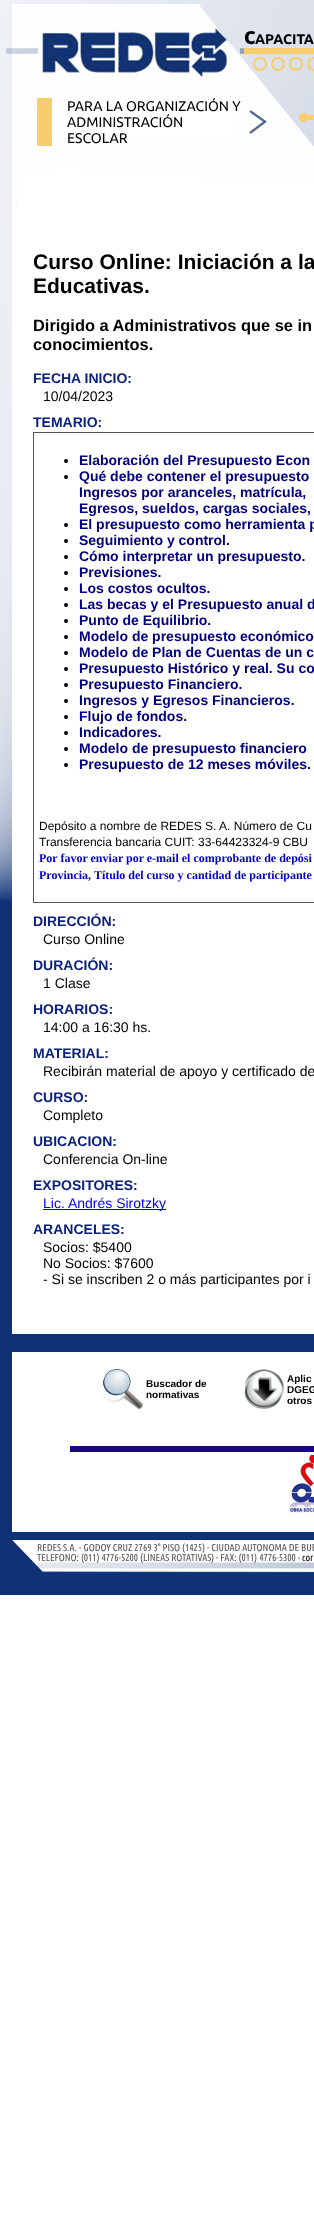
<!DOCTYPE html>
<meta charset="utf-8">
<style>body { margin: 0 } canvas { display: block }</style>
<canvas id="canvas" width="314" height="2228"></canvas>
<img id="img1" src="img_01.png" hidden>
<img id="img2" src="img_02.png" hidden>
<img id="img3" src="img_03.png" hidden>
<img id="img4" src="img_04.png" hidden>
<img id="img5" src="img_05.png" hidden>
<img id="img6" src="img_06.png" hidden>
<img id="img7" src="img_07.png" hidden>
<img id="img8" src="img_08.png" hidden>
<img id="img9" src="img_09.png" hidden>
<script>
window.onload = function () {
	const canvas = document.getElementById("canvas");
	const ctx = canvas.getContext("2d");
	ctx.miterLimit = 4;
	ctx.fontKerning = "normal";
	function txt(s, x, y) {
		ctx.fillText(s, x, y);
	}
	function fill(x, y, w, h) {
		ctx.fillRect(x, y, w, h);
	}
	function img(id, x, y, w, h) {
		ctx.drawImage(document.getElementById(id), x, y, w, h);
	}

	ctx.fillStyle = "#FFFFFF";
	fill(0, 0, 314, 2228);
	ctx.fillStyle = "#0F3175";
	fill(0, 900, 314, 695);
	img("img1", 0, 0, 314, 900);
	img("img2", 6, 4, 308, 214);
	img("img3", 41, 28, 191, 49);
	ctx.fillStyle = "#F8CE6C";
	fill(244, 48, 70, 6);
	ctx.beginPath();
	ctx.arc(260, 64, 6, 0, Math.PI * 2);
	ctx.strokeStyle = "#F8CE6C";
	ctx.lineWidth = 2;
	ctx.stroke();
	ctx.beginPath();
	ctx.arc(278, 64, 6, 0, Math.PI * 2);
	ctx.stroke();
	ctx.beginPath();
	ctx.arc(296, 64, 6, 0, Math.PI * 2);
	ctx.stroke();
	ctx.beginPath();
	ctx.arc(314, 64, 6, 0, Math.PI * 2);
	ctx.stroke();
	img("img4", 249, 110, 18, 24);
	fill(37, 98, 15, 48);
	img("img5", 299, 113, 15, 9);
	ctx.fillStyle = "#FFFFFF";
	fill(12, 218, 302, 1116);
	ctx.strokeStyle = "#555555";
	ctx.lineWidth = 1;
	ctx.strokeRect(33.5, 432.5, 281, 470);
	ctx.fillStyle = "#000000";
	ctx.beginPath();
	ctx.arc(66, 461, 2, 0, Math.PI * 2);
	ctx.fill();
	ctx.beginPath();
	ctx.arc(66, 477, 2, 0, Math.PI * 2);
	ctx.fill();
	ctx.beginPath();
	ctx.arc(66, 525, 2, 0, Math.PI * 2);
	ctx.fill();
	ctx.beginPath();
	ctx.arc(66, 541, 2, 0, Math.PI * 2);
	ctx.fill();
	ctx.beginPath();
	ctx.arc(66, 557, 2, 0, Math.PI * 2);
	ctx.fill();
	ctx.beginPath();
	ctx.arc(66, 573, 2, 0, Math.PI * 2);
	ctx.fill();
	ctx.beginPath();
	ctx.arc(66, 589, 2, 0, Math.PI * 2);
	ctx.fill();
	ctx.beginPath();
	ctx.arc(66, 605, 2, 0, Math.PI * 2);
	ctx.fill();
	ctx.beginPath();
	ctx.arc(66, 621, 2, 0, Math.PI * 2);
	ctx.fill();
	ctx.beginPath();
	ctx.arc(66, 637, 2, 0, Math.PI * 2);
	ctx.fill();
	ctx.beginPath();
	ctx.arc(66, 653, 2, 0, Math.PI * 2);
	ctx.fill();
	ctx.beginPath();
	ctx.arc(66, 669, 2, 0, Math.PI * 2);
	ctx.fill();
	ctx.beginPath();
	ctx.arc(66, 685, 2, 0, Math.PI * 2);
	ctx.fill();
	ctx.beginPath();
	ctx.arc(66, 701, 2, 0, Math.PI * 2);
	ctx.fill();
	ctx.beginPath();
	ctx.arc(66, 717, 2, 0, Math.PI * 2);
	ctx.fill();
	ctx.beginPath();
	ctx.arc(66, 733, 2, 0, Math.PI * 2);
	ctx.fill();
	ctx.beginPath();
	ctx.arc(66, 749, 2, 0, Math.PI * 2);
	ctx.fill();
	ctx.beginPath();
	ctx.arc(66, 765, 2, 0, Math.PI * 2);
	ctx.fill();
	ctx.fillStyle = "#0000EE";
	fill(43, 1209, 123, 1);
	ctx.fillStyle = "#FFFFFF";
	fill(12, 1352, 302, 180);
	img("img6", 101, 1369, 42, 40);
	img("img7", 244, 1369, 40, 40);
	ctx.fillStyle = "#180884";
	fill(70, 1446, 244, 6);
	img("img8", 289, 1455, 25, 58);
	img("img9", 12, 1540, 302, 33);
	ctx.font = "900 18px Noto Sans";
	ctx.fillStyle = "#000000";
	txt("C", 244, 44);
	ctx.font = "bold 14px Ubuntu";
	txt("APACITA", 255, 44);
	ctx.font = "14px Ubuntu";
	txt("PARA LA ORGANIZACIÓN Y", 67, 111);
	txt("ADMINISTRACIÓN", 67, 127);
	txt("ESCOLAR", 67, 143);
	ctx.font = "bold 21px Liberation Sans";
	txt("Curso Online: Iniciación a la", 33, 269);
	txt("Educativas.", 33, 293);
	ctx.font = "bold 16.4px Liberation Sans";
	txt("Dirigido a Administrativos que se in", 33, 331);
	txt("conocimientos.", 33, 350);
	ctx.font = "bold 14px Liberation Sans";
	ctx.fillStyle = "#0A217E";
	txt("FECHA INICIO:", 33, 383);
	ctx.font = "14px Liberation Sans";
	ctx.fillStyle = "#000000";
	txt("10/04/2023", 43, 401);
	ctx.font = "bold 14px Liberation Sans";
	ctx.fillStyle = "#0A217E";
	txt("TEMARIO:", 33, 427);
	ctx.fillStyle = "#000080";
	txt("Elaboración del Presupuesto Econ", 79, 465);
	txt("Qué debe contener el presupuesto", 79, 481);
	txt("Ingresos por aranceles, matrícula,", 79, 497);
	txt("Egresos, sueldos, cargas sociales,", 79, 513);
	txt("El presupuesto como herramienta p", 79, 529);
	txt("Seguimiento y control.", 79, 545);
	txt("Cómo interpretar un presupuesto.", 79, 561);
	txt("Previsiones.", 79, 577);
	txt("Los costos ocultos.", 79, 593);
	txt("Las becas y el Presupuesto anual d", 79, 609);
	txt("Punto de Equilibrio.", 79, 625);
	txt("Modelo de presupuesto económico", 79, 641);
	txt("Modelo de Plan de Cuentas de un c", 79, 657);
	txt("Presupuesto Histórico y real. Su co", 79, 673);
	txt("Presupuesto Financiero.", 79, 689);
	txt("Ingresos y Egresos Financieros.", 79, 705);
	txt("Flujo de fondos.", 79, 721);
	txt("Indicadores.", 79, 737);
	txt("Modelo de presupuesto financiero", 79, 753);
	txt("Presupuesto de 12 meses móviles.", 79, 769);
	ctx.font = "12px Liberation Sans";
	ctx.fillStyle = "#000000";
	txt("Depósito a nombre de REDES S. A. Número de Cu", 39, 830);
	txt("Transferencia bancaria CUIT: 33-64423324-9 CBU", 39, 846);
	ctx.font = "bold 12px Liberation Serif";
	ctx.fillStyle = "#0000CD";
	txt("Por favor enviar por e-mail el comprobante de depósi", 39, 862);
	txt("Provincia, Título del curso y cantidad de participante", 39, 879);
	ctx.font = "bold 14px Liberation Sans";
	ctx.fillStyle = "#0A217E";
	txt("DIRECCIÓN:", 33, 926);
	ctx.font = "14px Liberation Sans";
	ctx.fillStyle = "#000000";
	txt("Curso Online", 43, 944);
	ctx.font = "bold 14px Liberation Sans";
	ctx.fillStyle = "#0A217E";
	txt("DURACIÓN:", 33, 970);
	ctx.font = "14px Liberation Sans";
	ctx.fillStyle = "#000000";
	txt("1 Clase", 43, 988);
	ctx.font = "bold 14px Liberation Sans";
	ctx.fillStyle = "#0A217E";
	txt("HORARIOS:", 33, 1014);
	ctx.font = "14px Liberation Sans";
	ctx.fillStyle = "#000000";
	txt("14:00 a 16:30 hs.", 43, 1032);
	ctx.font = "bold 14px Liberation Sans";
	ctx.fillStyle = "#0A217E";
	txt("MATERIAL:", 33, 1058);
	ctx.font = "14px Liberation Sans";
	ctx.fillStyle = "#000000";
	txt("Recibirán material de apoyo y certificado de", 43, 1076);
	ctx.font = "bold 14px Liberation Sans";
	ctx.fillStyle = "#0A217E";
	txt("CURSO:", 33, 1102);
	ctx.font = "14px Liberation Sans";
	ctx.fillStyle = "#000000";
	txt("Completo", 43, 1120);
	ctx.font = "bold 14px Liberation Sans";
	ctx.fillStyle = "#0A217E";
	txt("UBICACION:", 33, 1146);
	ctx.font = "14px Liberation Sans";
	ctx.fillStyle = "#000000";
	txt("Conferencia On-line", 43, 1164);
	ctx.font = "bold 14px Liberation Sans";
	ctx.fillStyle = "#0A217E";
	txt("EXPOSITORES:", 33, 1190);
	ctx.font = "14px Liberation Sans";
	ctx.fillStyle = "#0000EE";
	txt("Lic. Andrés Sirotzky", 43, 1208);
	ctx.font = "bold 14px Liberation Sans";
	ctx.fillStyle = "#0A217E";
	txt("ARANCELES:", 33, 1234);
	ctx.font = "14px Liberation Sans";
	ctx.fillStyle = "#000000";
	txt("Socios: $5400", 43, 1252);
	txt("No Socios: $7600", 43, 1268);
	txt("- Si se inscriben 2 o más participantes por i", 43, 1284);
	ctx.font = "bold 10px Liberation Sans";
	txt("Buscador de", 146, 1387);
	txt("normativas", 146, 1398);
	txt("Aplic", 287, 1382);
	txt("DGEG", 287, 1393);
	txt("otros", 287, 1404);
	ctx.font = "10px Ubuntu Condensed";
	ctx.fillStyle = "#555555";
	txt("REDES S.A. - GODOY CRUZ 2769 3° PISO (1425) - CIUDAD AUTONOMA DE BUE", 37, 1551);
	txt("TELEFONO: (011) 4776-5200 (LINEAS ROTATIVAS) - FAX: (011) 4776-5300 -", 37, 1561);
	ctx.fillStyle = "#000000";
	txt("cor", 302, 1561);
};
</script>
